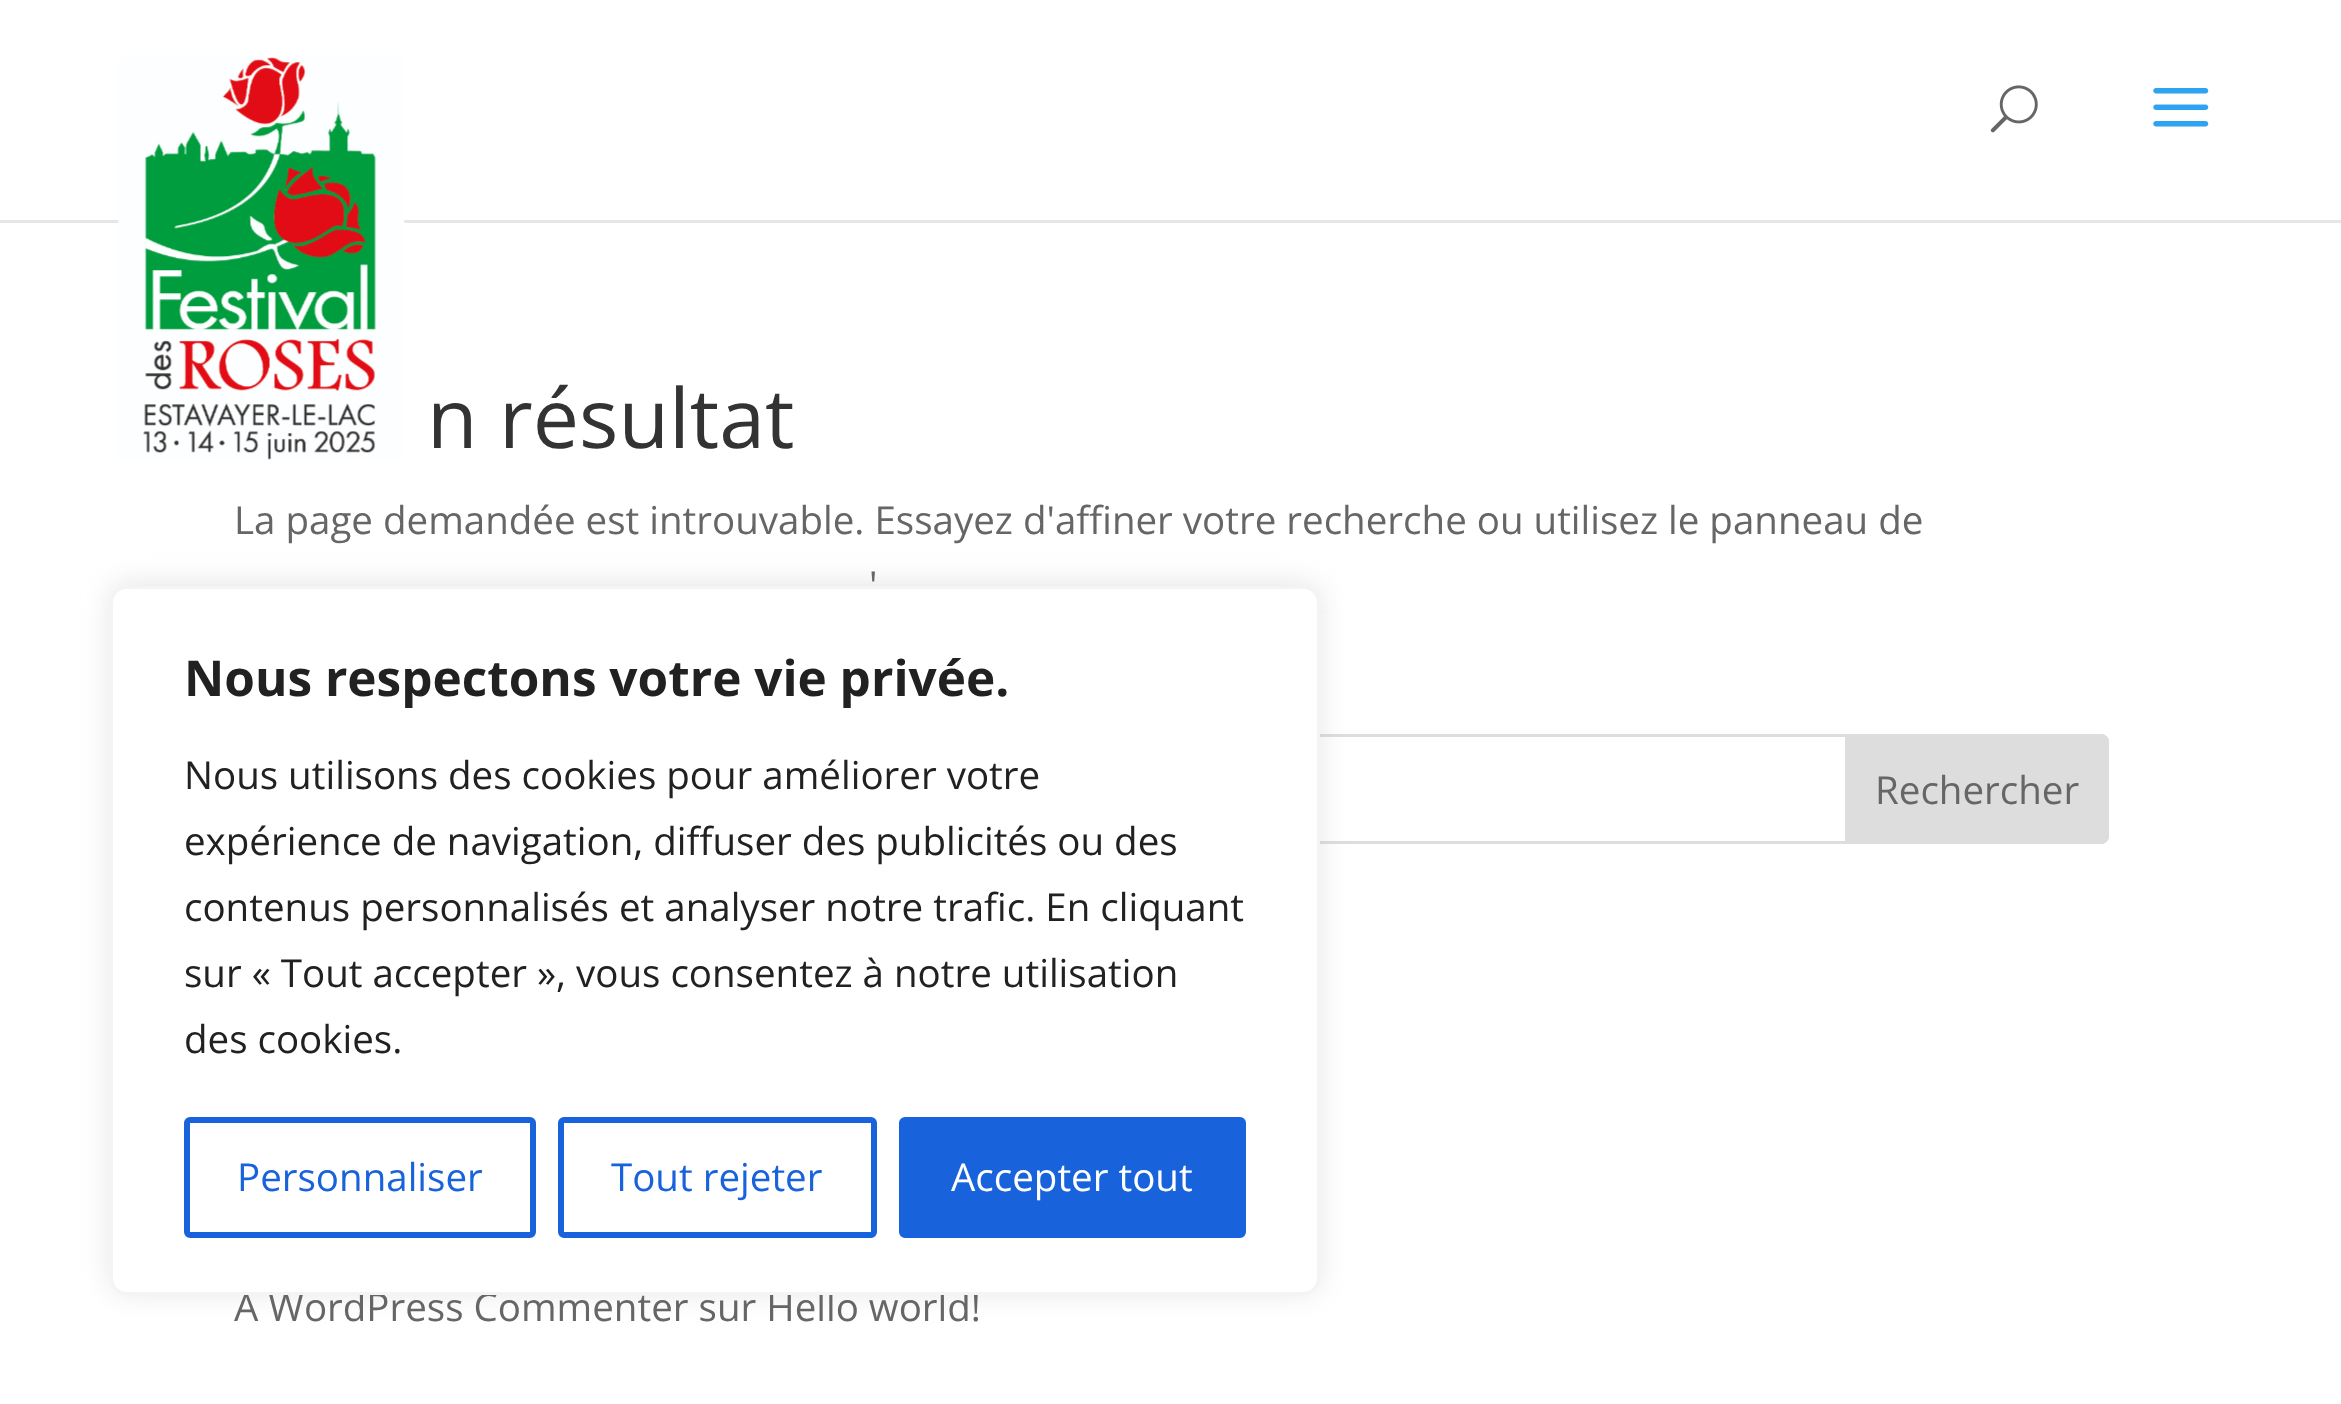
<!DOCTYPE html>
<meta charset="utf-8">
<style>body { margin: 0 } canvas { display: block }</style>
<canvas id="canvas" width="2341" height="1404"></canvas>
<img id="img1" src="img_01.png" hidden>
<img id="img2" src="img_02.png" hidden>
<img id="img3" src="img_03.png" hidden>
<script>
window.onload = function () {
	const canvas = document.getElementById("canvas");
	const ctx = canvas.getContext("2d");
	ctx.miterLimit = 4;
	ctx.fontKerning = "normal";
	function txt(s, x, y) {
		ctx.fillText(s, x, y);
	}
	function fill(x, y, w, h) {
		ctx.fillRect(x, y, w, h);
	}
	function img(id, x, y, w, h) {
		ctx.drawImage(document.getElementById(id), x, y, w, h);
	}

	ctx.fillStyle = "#FFFFFF";
	fill(0, 0, 2341, 1404);
	ctx.fillStyle = "#E6E6E6";
	fill(0, 220, 2341, 3);
	img("img1", 118, 57, 287, 403);
	img("img2", 1990, 85, 48, 48);
	img("img3", 2153, 88, 56, 39);
	ctx.beginPath();
	ctx.roundRect(235.5, 735.5, 1872, 107, 6.5);
	ctx.strokeStyle = "#DDDDDD";
	ctx.lineWidth = 3;
	ctx.stroke();
	ctx.fillStyle = "#DDDDDD";
	ctx.beginPath();
	ctx.roundRect(1846.5, 735.5, 261, 107, [0, 6.5, 6.5, 0]);
	ctx.fill();
	ctx.stroke();
	ctx.fillStyle = "rgba(172, 171, 171, 0.3)";
	ctx.filter = "blur(14px)";
	ctx.beginPath();
	ctx.roundRect(110, 583, 1210, 710, 17);
	ctx.fill();
	ctx.filter = "none";
	ctx.font = "82.5px Open Sans";
	ctx.fillStyle = "#333333";
	txt("n résultat", 427, 448);
	ctx.font = "38.5px Open Sans";
	ctx.fillStyle = "#666666";
	txt("La page demandée est introuvable. Essayez d'affiner votre recherche ou utilisez le panneau de", 234, 534);
	txt("'", 869, 599);
	txt("Rechercher", 1875, 804);
	txt("A WordPress Commenter sur Hello world!", 234, 1321);
	ctx.fillStyle = "#FFFFFF";
	ctx.beginPath();
	ctx.roundRect(111.5, 587.5, 1207, 706, 15.5);
	ctx.fill();
	ctx.strokeStyle = "#F4F4F4";
	ctx.stroke();
	ctx.font = "bold 49.5px Open Sans";
	ctx.fillStyle = "#212121";
	txt("Nous respectons votre vie privée.", 184, 696);
	ctx.font = "38.5px Open Sans";
	txt("Nous utilisons des cookies pour améliorer votre", 184, 789);
	txt("expérience de navigation, diffuser des publicités ou des", 184, 855);
	txt("contenus personnalisés et analyser notre trafic. En cliquant", 184, 921);
	txt("sur « Tout accepter », vous consentez à notre utilisation", 184, 987);
	txt("des cookies.", 184, 1053);
	ctx.beginPath();
	ctx.roundRect(187, 1120, 346, 115, 3);
	ctx.strokeStyle = "#1863DC";
	ctx.lineWidth = 6;
	ctx.stroke();
	ctx.fillStyle = "#1863DC";
	txt("Personnaliser", 237, 1191);
	ctx.beginPath();
	ctx.roundRect(561, 1120, 313, 115, 3);
	ctx.stroke();
	txt("Tout rejeter", 611, 1191);
	ctx.beginPath();
	ctx.roundRect(902, 1120, 341, 115, 3);
	ctx.fill();
	ctx.stroke();
	ctx.fillStyle = "#FFFFFF";
	txt("Accepter tout", 951, 1191);
};
</script>
